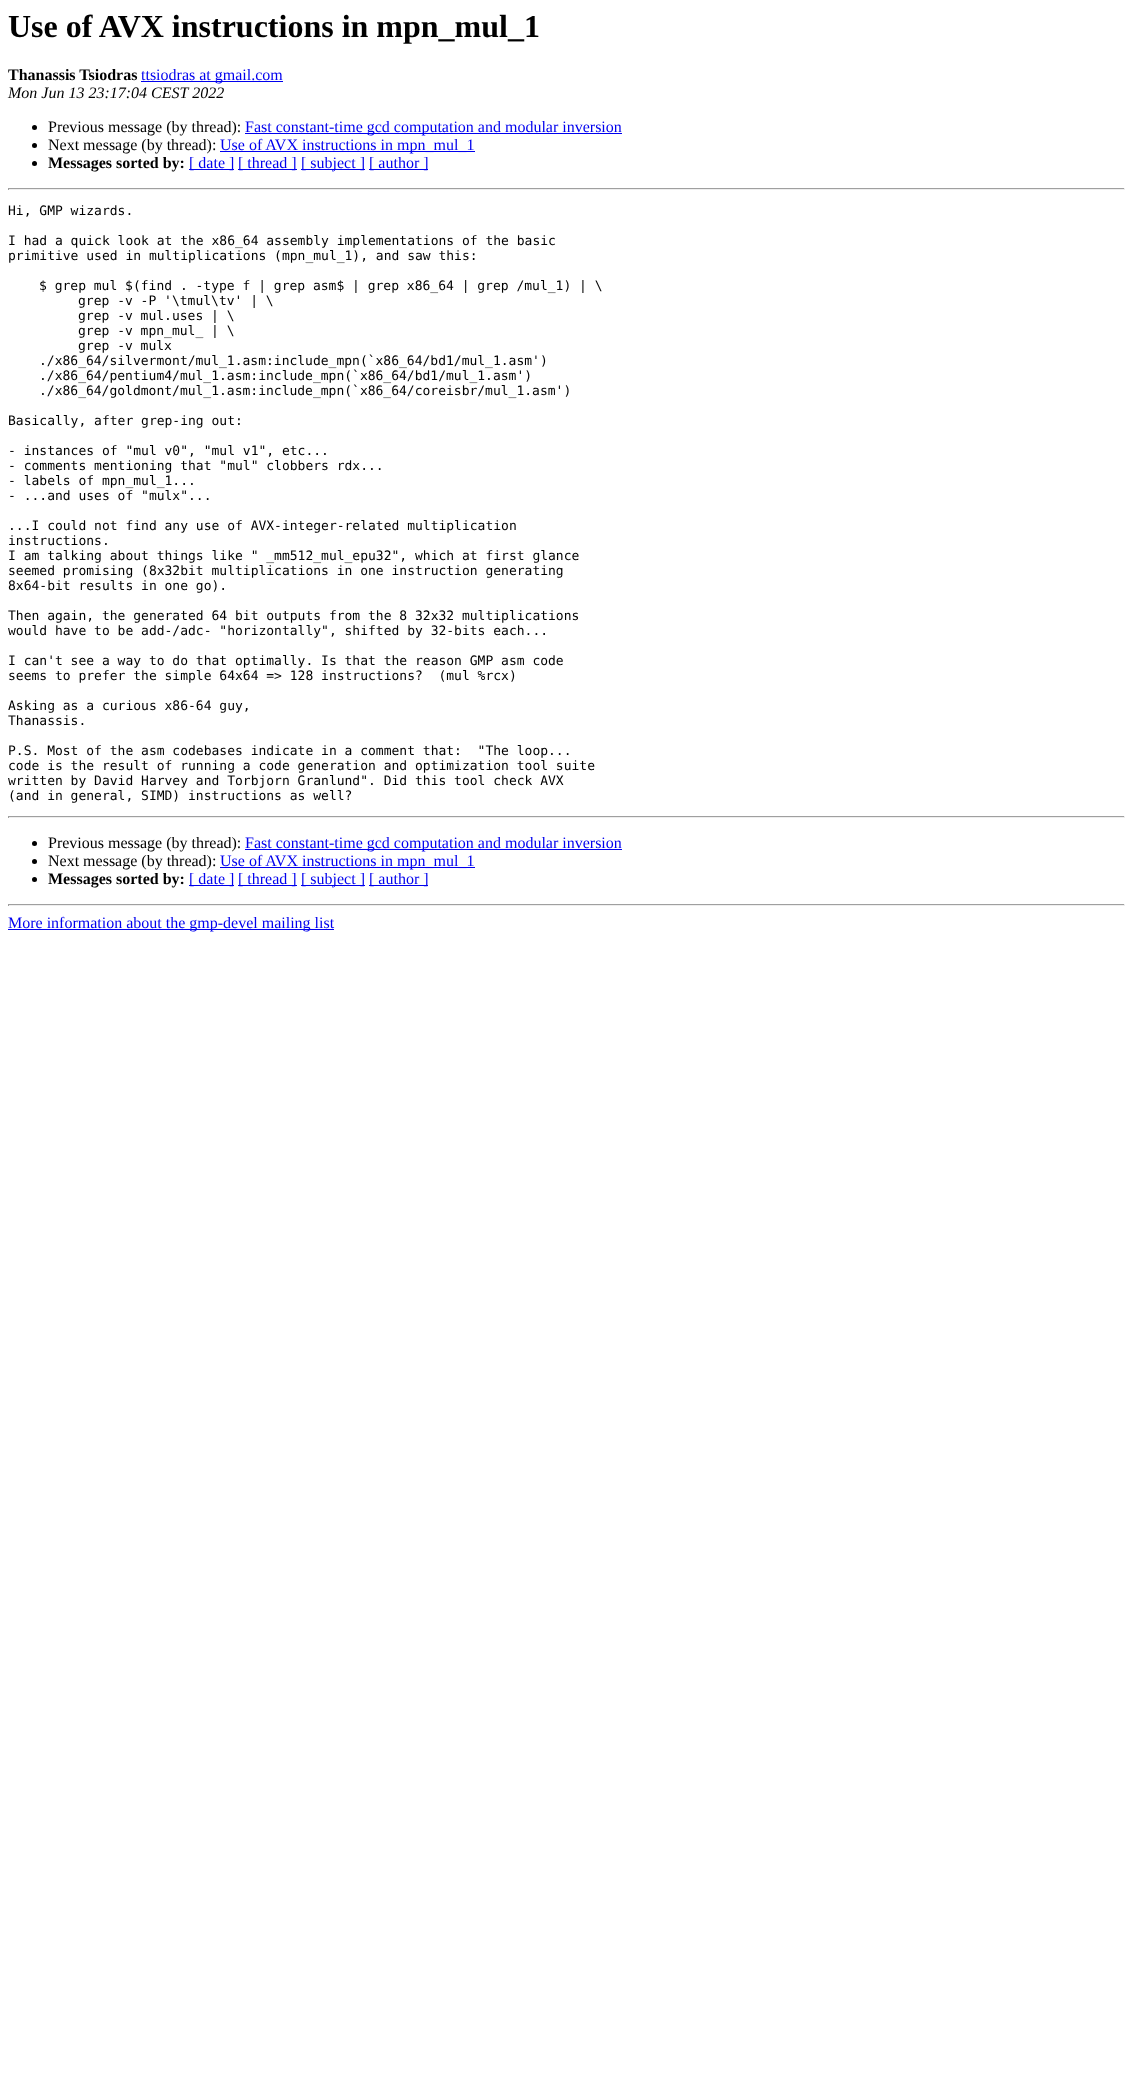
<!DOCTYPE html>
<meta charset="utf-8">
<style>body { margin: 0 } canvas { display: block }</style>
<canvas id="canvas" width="1133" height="2083"></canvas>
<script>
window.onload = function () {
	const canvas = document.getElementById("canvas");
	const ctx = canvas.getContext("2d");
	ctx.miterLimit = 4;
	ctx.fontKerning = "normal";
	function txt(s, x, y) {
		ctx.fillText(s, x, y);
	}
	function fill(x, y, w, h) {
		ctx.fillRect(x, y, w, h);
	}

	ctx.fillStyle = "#FFFFFF";
	fill(0, 0, 1133, 2083);
	ctx.fillStyle = "#0000EE";
	fill(141, 81, 142, 1);
	ctx.fillStyle = "#000000";
	ctx.beginPath();
	ctx.arc(34.5, 127.5, 2.5, 0, Math.PI * 2);
	ctx.fill();
	ctx.fillStyle = "#0000EE";
	fill(245, 133, 377, 1);
	ctx.fillStyle = "#000000";
	ctx.beginPath();
	ctx.arc(34.5, 145.5, 2.5, 0, Math.PI * 2);
	ctx.fill();
	ctx.fillStyle = "#0000EE";
	fill(220, 151, 255, 1);
	ctx.fillStyle = "#000000";
	ctx.beginPath();
	ctx.arc(34.5, 163.5, 2.5, 0, Math.PI * 2);
	ctx.fill();
	ctx.fillStyle = "#0000EE";
	fill(189, 169, 45, 1);
	fill(238, 169, 59, 1);
	fill(301, 169, 64, 1);
	fill(369, 169, 59, 1);
	ctx.fillStyle = "#9F9F9F";
	fill(8, 188, 1117, 1);
	ctx.fillStyle = "#EEEEEE";
	fill(1124, 188, 1, 2);
	fill(8, 189, 1117, 1);
	ctx.fillStyle = "#9F9F9F";
	fill(8, 188, 1, 2);
	fill(8, 816, 1117, 1);
	ctx.fillStyle = "#EEEEEE";
	fill(1124, 816, 1, 2);
	fill(8, 817, 1117, 1);
	ctx.fillStyle = "#9F9F9F";
	fill(8, 816, 1, 2);
	ctx.fillStyle = "#000000";
	ctx.beginPath();
	ctx.arc(34.5, 843.5, 2.5, 0, Math.PI * 2);
	ctx.fill();
	ctx.fillStyle = "#0000EE";
	fill(245, 849, 377, 1);
	ctx.fillStyle = "#000000";
	ctx.beginPath();
	ctx.arc(34.5, 861.5, 2.5, 0, Math.PI * 2);
	ctx.fill();
	ctx.fillStyle = "#0000EE";
	fill(220, 867, 255, 1);
	ctx.fillStyle = "#000000";
	ctx.beginPath();
	ctx.arc(34.5, 879.5, 2.5, 0, Math.PI * 2);
	ctx.fill();
	ctx.fillStyle = "#0000EE";
	fill(189, 885, 45, 1);
	fill(238, 885, 59, 1);
	fill(301, 885, 64, 1);
	fill(369, 885, 59, 1);
	ctx.fillStyle = "#9F9F9F";
	fill(8, 904, 1117, 1);
	ctx.fillStyle = "#EEEEEE";
	fill(1124, 904, 1, 2);
	fill(8, 905, 1117, 1);
	ctx.fillStyle = "#9F9F9F";
	fill(8, 904, 1, 2);
	ctx.fillStyle = "#0000EE";
	fill(8, 929, 326, 1);
	ctx.font = "bold 32px Liberation Serif";
	ctx.fillStyle = "#000000";
	txt("Use of AVX instructions in mpn_mul_1", 8, 37);
	ctx.font = "bold 16px Liberation Serif";
	txt("Thanassis Tsiodras", 8, 80);
	ctx.font = "16px Liberation Serif";
	ctx.fillStyle = "#0000EE";
	txt("ttsiodras at gmail.com", 141, 80);
	ctx.font = "italic 16px Liberation Serif";
	ctx.fillStyle = "#000000";
	txt("Mon Jun 13 23:17:04 CEST 2022", 8, 98);
	ctx.font = "16px Liberation Serif";
	txt("Previous message (by thread):", 48, 132);
	ctx.fillStyle = "#0000EE";
	txt("Fast constant-time gcd computation and modular inversion", 245, 132);
	ctx.fillStyle = "#000000";
	txt("Next message (by thread):", 48, 150);
	ctx.fillStyle = "#0000EE";
	txt("Use of AVX instructions in mpn_mul_1", 220, 150);
	ctx.font = "bold 16px Liberation Serif";
	ctx.fillStyle = "#000000";
	txt("Messages sorted by:", 48, 168);
	ctx.font = "16px Liberation Serif";
	ctx.fillStyle = "#0000EE";
	txt("[ date ]", 189, 168);
	txt("[ thread ]", 238, 168);
	txt("[ subject ]", 301, 168);
	txt("[ author ]", 369, 168);
	ctx.font = "13px DejaVu Sans Mono";
	ctx.fillStyle = "#000000";
	txt("Hi, GMP wizards.", 8, 215);
	txt("I had a quick look at the x86_64 assembly implementations of the basic", 8, 245);
	txt("primitive used in multiplications (mpn_mul_1), and saw this:", 8, 260);
	txt("$ grep mul $(find . -type f | grep asm$ | grep x86_64 | grep /mul_1) | \\", 39, 290);
	txt("grep -v -P '\\tmul\\tv' | \\", 78, 305);
	txt("grep -v mul.uses | \\", 78, 320);
	txt("grep -v mpn_mul_ | \\", 78, 335);
	txt("grep -v mulx", 78, 350);
	txt("./x86_64/silvermont/mul_1.asm:include_mpn(`x86_64/bd1/mul_1.asm')", 39, 365);
	txt("./x86_64/pentium4/mul_1.asm:include_mpn(`x86_64/bd1/mul_1.asm')", 39, 380);
	txt("./x86_64/goldmont/mul_1.asm:include_mpn(`x86_64/coreisbr/mul_1.asm')", 39, 395);
	txt("Basically, after grep-ing out:", 8, 425);
	txt("- instances of \"mul v0\", \"mul v1\", etc...", 8, 455);
	txt("- comments mentioning that \"mul\" clobbers rdx...", 8, 470);
	txt("- labels of mpn_mul_1...", 8, 485);
	txt("- ...and uses of \"mulx\"...", 8, 500);
	txt("...I could not find any use of AVX-integer-related multiplication", 8, 530);
	txt("instructions.", 8, 545);
	txt("I am talking about things like \" _mm512_mul_epu32\", which at first glance", 8, 560);
	txt("seemed promising (8x32bit multiplications in one instruction generating", 8, 575);
	txt("8x64-bit results in one go).", 8, 590);
	txt("Then again, the generated 64 bit outputs from the 8 32x32 multiplications", 8, 620);
	txt("would have to be add-/adc- \"horizontally\", shifted by 32-bits each...", 8, 635);
	txt("I can't see a way to do that optimally. Is that the reason GMP asm code", 8, 665);
	txt("seems to prefer the simple 64x64 => 128 instructions?  (mul %rcx)", 8, 680);
	txt("Asking as a curious x86-64 guy,", 8, 710);
	txt("Thanassis.", 8, 725);
	txt("P.S. Most of the asm codebases indicate in a comment that:  \"The loop...", 8, 755);
	txt("code is the result of running a code generation and optimization tool suite", 8, 770);
	txt("written by David Harvey and Torbjorn Granlund\". Did this tool check AVX", 8, 785);
	txt("(and in general, SIMD) instructions as well?", 8, 800);
	ctx.font = "16px Liberation Serif";
	txt("Previous message (by thread):", 48, 848);
	ctx.fillStyle = "#0000EE";
	txt("Fast constant-time gcd computation and modular inversion", 245, 848);
	ctx.fillStyle = "#000000";
	txt("Next message (by thread):", 48, 866);
	ctx.fillStyle = "#0000EE";
	txt("Use of AVX instructions in mpn_mul_1", 220, 866);
	ctx.font = "bold 16px Liberation Serif";
	ctx.fillStyle = "#000000";
	txt("Messages sorted by:", 48, 884);
	ctx.font = "16px Liberation Serif";
	ctx.fillStyle = "#0000EE";
	txt("[ date ]", 189, 884);
	txt("[ thread ]", 238, 884);
	txt("[ subject ]", 301, 884);
	txt("[ author ]", 369, 884);
	txt("More information about the gmp-devel mailing list", 8, 928);
};
</script>
